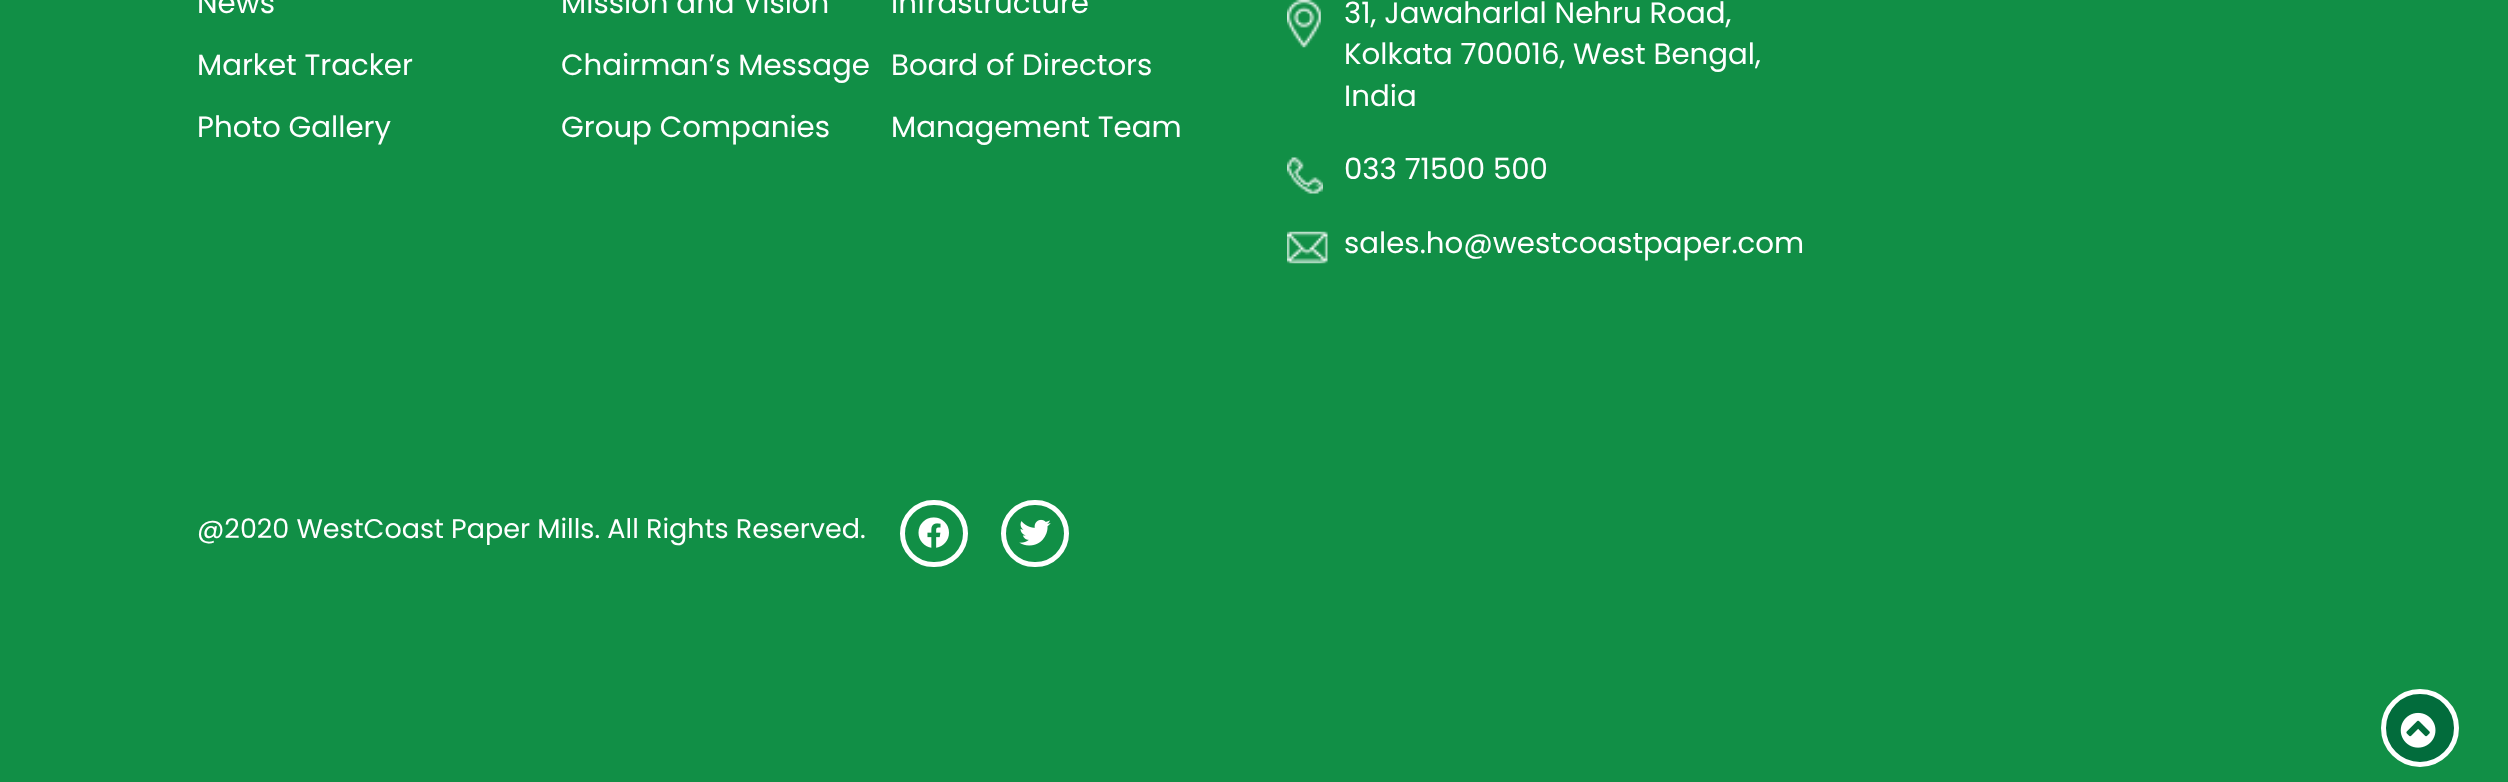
<!DOCTYPE html>
<meta charset="utf-8">
<style>body { margin: 0 } canvas { display: block }</style>
<canvas id="canvas" width="2508" height="782"></canvas>
<img id="img1" src="img_01.png" hidden>
<img id="img2" src="img_02.png" hidden>
<img id="img3" src="img_03.png" hidden>
<img id="img4" src="img_04.png" hidden>
<img id="img5" src="img_05.png" hidden>
<img id="img6" src="img_06.png" hidden>
<script>
window.onload = function () {
	const canvas = document.getElementById("canvas");
	const ctx = canvas.getContext("2d");
	ctx.miterLimit = 4;
	ctx.fontKerning = "normal";
	function txt(s, x, y) {
		ctx.fillText(s, x, y);
	}
	function fill(x, y, w, h) {
		ctx.fillRect(x, y, w, h);
	}
	function img(id, x, y, w, h) {
		ctx.drawImage(document.getElementById(id), x, y, w, h);
	}

	ctx.fillStyle = "#118F46";
	fill(0, 0, 2508, 782);
	img("img1", 1287, 0, 34, 48);
	img("img2", 1287, 157, 36, 37);
	img("img3", 1287, 231, 41, 33);
	ctx.beginPath();
	ctx.roundRect(902.5, 502.5, 63, 62, 31);
	ctx.strokeStyle = "#FFFFFF";
	ctx.lineWidth = 5;
	ctx.stroke();
	img("img4", 918, 517, 31, 31);
	ctx.beginPath();
	ctx.roundRect(1003.5, 502.5, 63, 62, 31);
	ctx.stroke();
	img("img5", 1019, 519, 32, 27);
	ctx.fillStyle = "#026C3C";
	ctx.beginPath();
	ctx.arc(2420, 728, 36.5, 0, Math.PI * 2);
	ctx.fill();
	ctx.stroke();
	img("img6", 2400, 712, 36, 36);
	ctx.font = "29.25px Poppins";
	ctx.fillStyle = "#FFFFFF";
	txt("News", 197, 13);
	txt("Market Tracker", 197, 75);
	txt("Photo Gallery", 197, 137);
	txt("Mission and Vision", 561, 13);
	txt("Infrastructure", 891, 13);
	txt("Chairman’s Message", 561, 75);
	txt("Board of Directors", 891, 75);
	txt("Group Companies", 561, 137);
	txt("Management Team", 891, 137);
	txt("31, Jawaharlal Nehru Road,", 1344, 23);
	txt("Kolkata 700016, West Bengal,", 1344, 64);
	txt("India", 1344, 106);
	txt("033 71500 500", 1344, 179);
	txt("sales.ho@westcoastpaper.com", 1344, 253);
	ctx.font = "27px Poppins";
	txt("@2020 WestCoast Paper Mills. All Rights Reserved.", 197, 538);
};
</script>
